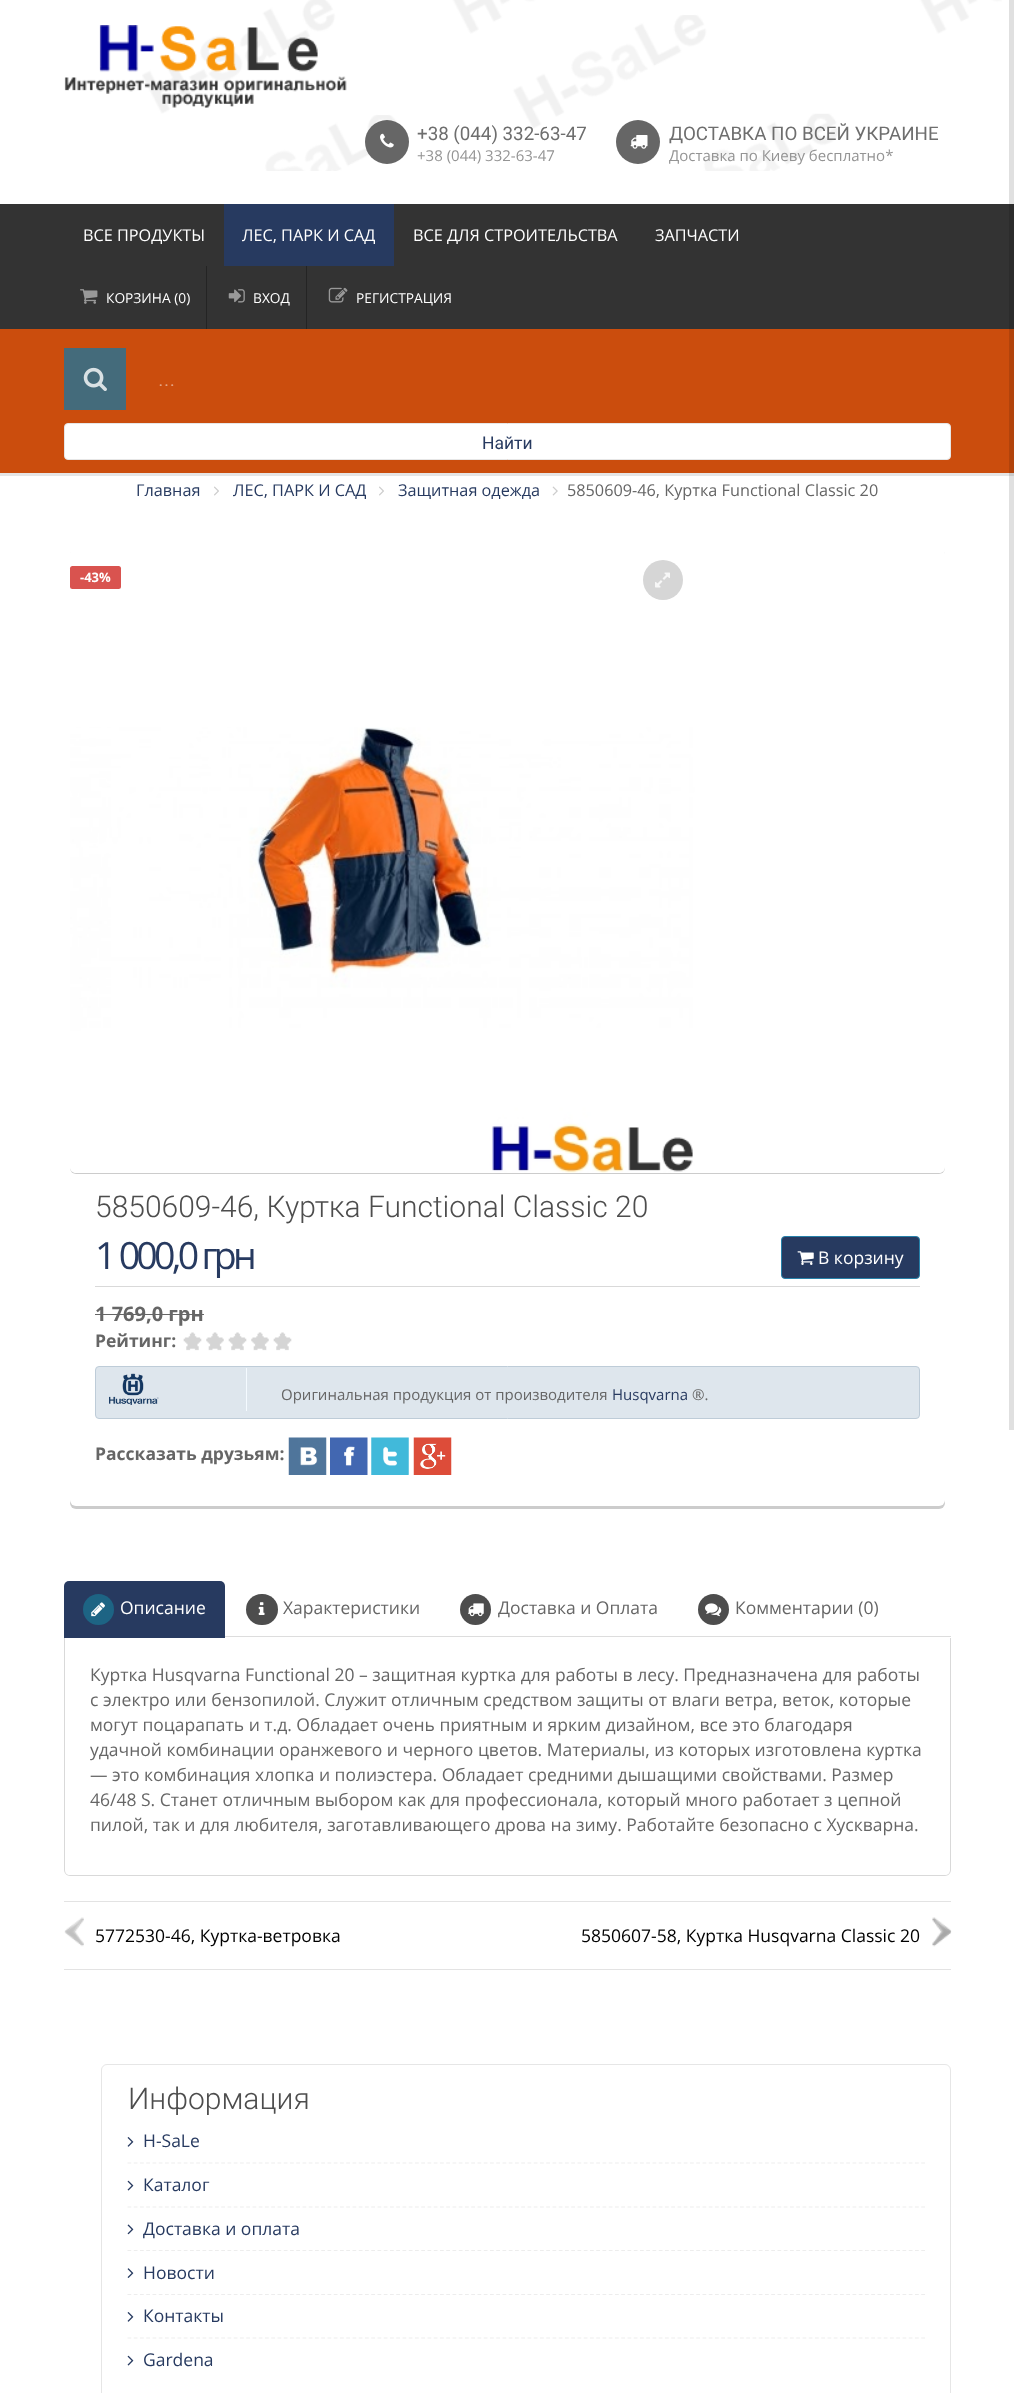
<!DOCTYPE html>
<meta charset="utf-8">
<style>body { margin: 0 } canvas { display: block }</style>
<canvas id="canvas" width="1014" height="2393"></canvas>
<img id="img1" src="img_01.png" hidden>
<img id="img2" src="img_02.png" hidden>
<img id="img3" src="img_03.png" hidden>
<img id="img4" src="img_04.png" hidden>
<img id="img5" src="img_05.png" hidden>
<img id="img6" src="img_06.png" hidden>
<img id="img7" src="img_07.png" hidden>
<img id="img8" src="img_08.png" hidden>
<img id="img9" src="img_09.png" hidden>
<img id="img10" src="img_10.png" hidden>
<img id="img11" src="img_11.png" hidden>
<img id="img12" src="img_12.png" hidden>
<img id="img13" src="img_13.png" hidden>
<img id="img14" src="img_14.png" hidden>
<img id="img15" src="img_15.png" hidden>
<img id="img16" src="img_16.png" hidden>
<img id="img17" src="img_17.png" hidden>
<img id="img18" src="img_18.png" hidden>
<img id="img19" src="img_19.png" hidden>
<img id="img20" src="img_20.png" hidden>
<img id="img21" src="img_21.png" hidden>
<img id="img22" src="img_22.png" hidden>
<img id="img23" src="img_23.png" hidden>
<img id="img24" src="img_24.png" hidden>
<img id="img25" src="img_25.png" hidden>
<img id="img26" src="img_26.png" hidden>
<img id="img27" src="img_27.png" hidden>
<img id="img28" src="img_28.png" hidden>
<img id="img29" src="img_29.png" hidden>
<script>
window.onload = function () {
	const canvas = document.getElementById("canvas");
	const ctx = canvas.getContext("2d");
	ctx.miterLimit = 4;
	ctx.fontKerning = "normal";
	function txt(s, x, y) {
		ctx.fillText(s, x, y);
	}
	function fill(x, y, w, h) {
		ctx.fillRect(x, y, w, h);
	}
	function round(x, y, w, h, r) {
		ctx.beginPath();
		ctx.roundRect(x, y, w, h, r);
		ctx.fill();
	}
	function img(id, x, y, w, h) {
		ctx.drawImage(document.getElementById(id), x, y, w, h);
	}

	ctx.fillStyle = "#333333";
	fill(0, 0, 1014, 2393);
	ctx.fillStyle = "#FFFFFF";
	fill(0, 0, 1014, 204);
	img("img1", 142, 0, 860, 171);
	img("img2", 64, 25, 283, 83);
	ctx.fillStyle = "#666666";
	ctx.beginPath();
	ctx.arc(387, 142, 22, 0, Math.PI * 2);
	ctx.fill();
	img("img3", 380, 133, 14, 15);
	ctx.beginPath();
	ctx.arc(638, 142, 22, 0, Math.PI * 2);
	ctx.fill();
	img("img4", 630, 135, 18, 14);
	ctx.fillStyle = "#273A60";
	fill(224, 204, 170, 62);
	ctx.fillStyle = "#242424";
	fill(206, 266, 1, 63);
	img("img5", 80, 289, 18, 15);
	fill(306, 266, 1, 63);
	img("img6", 228, 289, 17, 14);
	img("img7", 328, 287, 20, 16);
	ctx.fillStyle = "#FFFFFF";
	fill(0, 473, 1014, 1920);
	ctx.fillStyle = "rgba(0, 0, 0, 0.1)";
	ctx.filter = "blur(0.5px)";
	ctx.beginPath();
	ctx.rect(0, 333, 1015, 143);
	ctx.fill();
	ctx.filter = "none";
	ctx.fillStyle = "#CB4D0D";
	fill(0, 329, 1014, 144);
	ctx.fillStyle = "#446B7B";
	fill(64, 348, 62, 62);
	img("img8", 83, 367, 24, 24);
	ctx.fillStyle = "#FFFFFF";
	ctx.beginPath();
	ctx.roundRect(64.5, 423.5, 886, 36, 3.5);
	ctx.fill();
	ctx.strokeStyle = "#E6E6E6";
	ctx.stroke();
	img("img9", 214, 486, 5, 10);
	img("img9", 379, 486, 5, 10);
	img("img10", 552, 486, 6, 10);
	ctx.fillStyle = "rgba(0, 0, 0, 0.2)";
	ctx.filter = "blur(0.5px)";
	ctx.beginPath();
	ctx.roundRect(70, 1175, 875, 334, 6);
	ctx.fill();
	ctx.filter = "none";
	ctx.fillStyle = "#FFFFFF";
	round(70, 1173, 875, 333, 6);
	ctx.save();
	ctx.beginPath();
	ctx.moveTo(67, 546);
	ctx.lineTo(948, 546);
	ctx.lineTo(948, 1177);
	ctx.lineTo(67, 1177);
	ctx.closePath();
	ctx.moveTo(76, 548);
	ctx.lineTo(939, 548);
	ctx.bezierCurveTo(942.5, 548, 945, 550.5, 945, 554);
	ctx.lineTo(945, 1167);
	ctx.bezierCurveTo(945, 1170.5, 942.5, 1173, 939, 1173);
	ctx.lineTo(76, 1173);
	ctx.bezierCurveTo(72.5, 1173, 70, 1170.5, 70, 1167);
	ctx.lineTo(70, 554);
	ctx.bezierCurveTo(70, 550.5, 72.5, 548, 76, 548);
	ctx.closePath();
	ctx.clip("evenodd");
	ctx.fillStyle = "rgba(0, 0, 0, 0.2)";
	ctx.filter = "blur(0.5px)";
	ctx.beginPath();
	ctx.roundRect(70, 549, 875, 625, 6);
	ctx.fill();
	ctx.filter = "none";
	ctx.restore();
	ctx.fillStyle = "#D6D6D6";
	ctx.beginPath();
	ctx.arc(663, 580, 20, 0, Math.PI * 2);
	ctx.fill();
	img("img11", 655, 572, 15, 16);
	img("img12", 70, 727, 625, 446);
	ctx.fillStyle = "#D9534F";
	round(70, 566, 51, 23, 2.5);
	ctx.fillStyle = "#D9D9D9";
	fill(95, 1286, 825, 1);
	ctx.fillStyle = "#273A60";
	ctx.beginPath();
	ctx.roundRect(781.5, 1236.5, 138, 42, 3.5);
	ctx.fill();
	ctx.strokeStyle = "#2681AA";
	ctx.stroke();
	img("img13", 797, 1251, 17, 14);
	ctx.fillStyle = "#666666";
	fill(95, 1314, 109, 1);
	img("img14", 183, 1332, 109, 19);
	ctx.fillStyle = "#DEE6ED";
	ctx.beginPath();
	ctx.roundRect(95.5, 1366.5, 824, 52, 3.5);
	ctx.fill();
	ctx.strokeStyle = "#BECCD8";
	ctx.stroke();
	ctx.fillStyle = "#F4FAFF";
	fill(246, 1368, 1, 43);
	img("img15", 109, 1373, 50, 32);
	img("img16", 288, 1437, 39, 38);
	img("img17", 330, 1437, 38, 38);
	img("img18", 371, 1437, 38, 38);
	img("img19", 413, 1437, 39, 38);
	ctx.fillStyle = "#DDDDDD";
	fill(225, 1636, 726, 1);
	ctx.fillStyle = "#273A60";
	ctx.beginPath();
	ctx.roundRect(64, 1581, 161, 57, [5, 5, 0, 0]);
	ctx.fill();
	ctx.fillStyle = "#1D6484";
	ctx.beginPath();
	ctx.arc(98.5, 1609.5, 15.5, 0, Math.PI * 2);
	ctx.fill();
	img("img20", 91, 1602, 14, 15);
	ctx.fillStyle = "#4D4D4D";
	round(246, 1594, 32, 31, 15.5);
	img("img21", 258, 1602, 7, 13);
	ctx.beginPath();
	ctx.arc(475.5, 1609.5, 15.5, 0, Math.PI * 2);
	ctx.fill();
	img("img22", 468, 1603, 16, 14);
	ctx.beginPath();
	ctx.arc(713.5, 1609.5, 15.5, 0, Math.PI * 2);
	ctx.fill();
	img("img23", 705, 1603, 17, 14);
	ctx.fillStyle = "#D9D9D9";
	ctx.beginPath();
	ctx.moveTo(64, 1638);
	ctx.lineTo(951, 1638);
	ctx.lineTo(951, 1870);
	ctx.bezierCurveTo(951, 1873, 948, 1876, 945, 1876);
	ctx.lineTo(70, 1876);
	ctx.bezierCurveTo(67, 1876, 64, 1873, 64, 1870);
	ctx.closePath();
	ctx.moveTo(65, 1638);
	ctx.lineTo(950, 1638);
	ctx.lineTo(950, 1870);
	ctx.bezierCurveTo(950, 1873, 948, 1875, 945, 1875);
	ctx.lineTo(70, 1875);
	ctx.bezierCurveTo(67, 1875, 65, 1873, 65, 1870);
	ctx.closePath();
	ctx.fill("evenodd");
	ctx.fillStyle = "#E3E3E3";
	fill(64, 1901, 887, 1);
	fill(64, 1969, 887, 1);
	img("img24", 64, 1917, 20, 30);
	img("img25", 932, 1917, 20, 30);
	ctx.beginPath();
	ctx.roundRect(101.5, 2064.5, 849, 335, 5.5);
	ctx.strokeStyle = "#E6E6E6";
	ctx.stroke();
	ctx.beginPath();
	ctx.moveTo(127.5, 2163);
	ctx.lineTo(925, 2163);
	ctx.strokeStyle = "#EDEDED";
	ctx.lineWidth = 1.2;
	ctx.setLineDash([3.75, 2.5]);
	ctx.stroke();
	img("img26", 127, 2137, 7, 10);
	ctx.beginPath();
	ctx.moveTo(127.5, 2207);
	ctx.lineTo(925, 2207);
	ctx.stroke();
	img("img27", 127, 2180, 7, 11);
	ctx.beginPath();
	ctx.moveTo(127.5, 2250.5);
	ctx.lineTo(925, 2250.5);
	ctx.stroke();
	img("img28", 127, 2224, 7, 11);
	ctx.beginPath();
	ctx.moveTo(127.5, 2294.5);
	ctx.lineTo(925, 2294.5);
	ctx.stroke();
	img("img29", 127, 2268, 7, 10);
	ctx.beginPath();
	ctx.moveTo(127.5, 2338);
	ctx.lineTo(925, 2338);
	ctx.stroke();
	img("img26", 127, 2312, 7, 10);
	img("img27", 127, 2355, 7, 11);
	ctx.fillStyle = "rgba(0, 0, 0, 0.12)";
	fill(1009, 0, 5, 1430);
	ctx.font = "18.75px Roboto";
	ctx.fillStyle = "#6E6E6E";
	txt("+38 (044) 332-63-47", 417, 140);
	ctx.font = "15px Open Sans";
	ctx.fillStyle = "#949494";
	txt("+38 (044) 332-63-47", 417, 161);
	ctx.font = "18.75px Roboto";
	ctx.fillStyle = "#6E6E6E";
	txt("ДОСТАВКА ПО ВСЕЙ УКРАИНЕ", 669, 140);
	ctx.font = "15px Open Sans";
	ctx.fillStyle = "#949494";
	txt("Доставка по Киеву бесплатно*", 669, 161);
	ctx.font = "16.25px Open Sans";
	ctx.fillStyle = "#FFFFFF";
	txt("ВСЕ ПРОДУКТЫ", 83, 241);
	txt("ЛЕС, ПАРК И САД", 242, 241);
	txt("ВСЕ ДЛЯ СТРОИТЕЛЬСТВА", 413, 241);
	txt("ЗАПЧАСТИ", 655, 241);
	ctx.font = "13.75px Open Sans";
	txt("КОРЗИНА (0)", 106, 303);
	txt("ВХОД", 253, 303);
	txt("РЕГИСТРАЦИЯ", 356, 303);
	ctx.font = "300 24px Roboto";
	ctx.fillStyle = "#E5A686";
	txt("...", 158, 386);
	ctx.font = "17.5px Roboto";
	ctx.fillStyle = "#273A60";
	txt("Найти", 482, 449);
	ctx.font = "16.25px Open Sans";
	txt("Главная", 136, 496);
	txt("ЛЕС, ПАРК И САД", 233, 496);
	txt("Защитная одежда", 398, 496);
	ctx.fillStyle = "#666666";
	txt("5850609-46, Куртка Functional Classic 20", 567, 496);
	ctx.font = "bold 13px Open Sans";
	ctx.fillStyle = "#FFFFFF";
	txt("-43%", 80, 582);
	ctx.font = "300 30px Roboto";
	ctx.fillStyle = "#4D4D4D";
	txt("5850609-46, Куртка Functional Classic 20", 95, 1217);
	ctx.letterSpacing = "-3.75px";
	ctx.font = "37.5px Open Sans";
	ctx.fillStyle = "#273A60";
	txt("1 000,0 грн", 95, 1269);
	ctx.letterSpacing = "0px";
	ctx.font = "17.5px Open Sans";
	ctx.fillStyle = "#FFFFFF";
	txt("В корзину", 818, 1264);
	ctx.font = "bold 20px Open Sans";
	ctx.fillStyle = "#666666";
	txt("1 769,0 грн", 95, 1321);
	ctx.font = "bold 17.5px Open Sans";
	txt("Рейтинг:", 95, 1347);
	ctx.font = "15px Open Sans";
	txt("Оригинальная продукция от производителя", 281, 1400);
	ctx.fillStyle = "#273A60";
	txt("Husqvarna", 612, 1400);
	ctx.fillStyle = "#666666";
	txt("®.", 692, 1400);
	ctx.font = "bold 17.5px Open Sans";
	txt("Рассказать друзьям:", 95, 1460);
	ctx.font = "17.5px Open Sans";
	ctx.fillStyle = "#FFFFFF";
	txt("Описание", 120, 1614);
	ctx.fillStyle = "#666666";
	txt("Характеристики", 283, 1614);
	txt("Доставка и Оплата", 498, 1614);
	txt("Комментарии (0)", 735, 1614);
	txt("Куртка Husqvarna Functional 20 – защитная куртка для работы в лесу. Предназначена для работы", 90, 1681);
	txt("с электро или бензопилой. Служит отличным средством защиты от влаги ветра, веток, которые", 90, 1706);
	txt("могут поцарапать и т.д. Обладает очень приятным и ярким дизайном, все это благодаря", 90, 1731);
	txt("удачной комбинации оранжевого и черного цветов. Материалы, из которых изготовлена куртка", 90, 1756);
	txt("— это комбинация хлопка и полиэстера. Обладает средними дышащими свойствами. Размер", 90, 1781);
	txt("46/48 S. Станет отличным выбором как для профессионала, который много работает з цепной", 90, 1806);
	txt("пилой, так и для любителя, заготавливающего дрова на зиму. Работайте безопасно с Хускварна.", 90, 1831);
	ctx.fillStyle = "#000000";
	txt("5772530-46, Куртка-ветровка", 95, 1942);
	txt("5850607-58, Куртка Husqvarna Classic 20", 581, 1942);
	ctx.font = "300 30px Roboto";
	ctx.fillStyle = "#4D4D4D";
	txt("Информация", 128, 2109);
	ctx.font = "17.5px Open Sans";
	ctx.fillStyle = "#273A60";
	txt("H-SaLe", 143, 2147);
	txt("Каталог", 143, 2191);
	txt("Доставка и оплата", 143, 2235);
	txt("Новости", 143, 2279);
	txt("Контакты", 143, 2322);
	txt("Gardena", 143, 2366);
};
</script>
